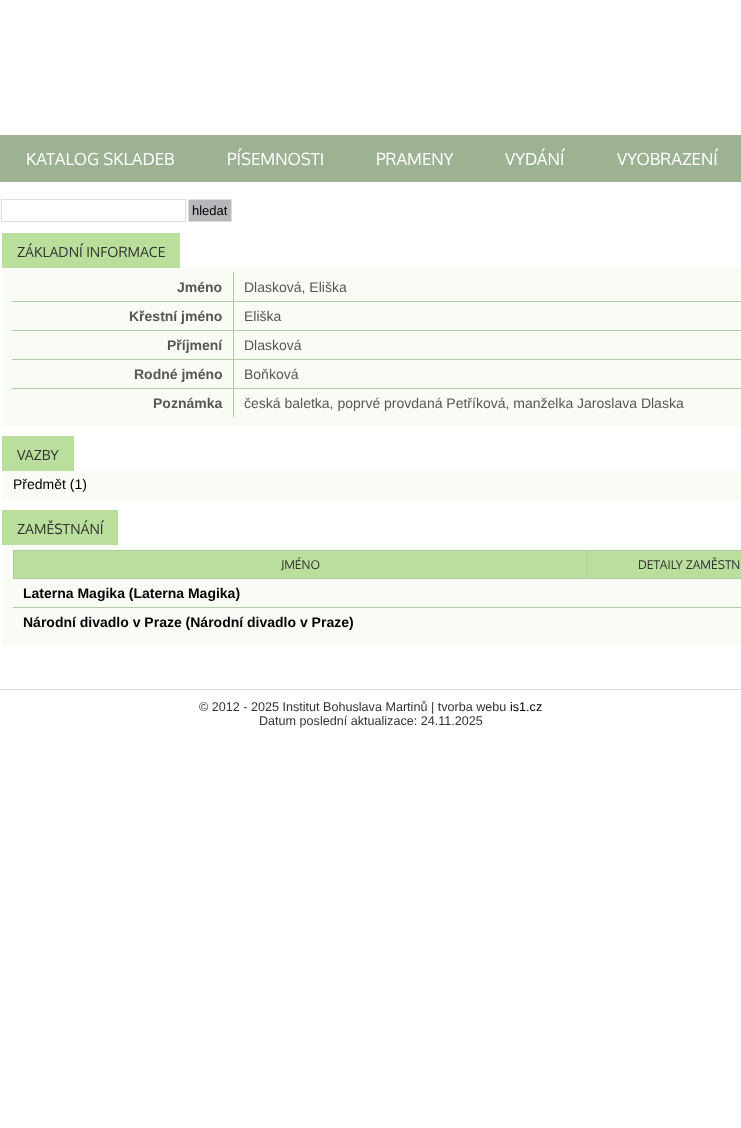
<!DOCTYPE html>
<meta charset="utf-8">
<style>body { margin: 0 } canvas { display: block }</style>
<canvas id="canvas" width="741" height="1128"></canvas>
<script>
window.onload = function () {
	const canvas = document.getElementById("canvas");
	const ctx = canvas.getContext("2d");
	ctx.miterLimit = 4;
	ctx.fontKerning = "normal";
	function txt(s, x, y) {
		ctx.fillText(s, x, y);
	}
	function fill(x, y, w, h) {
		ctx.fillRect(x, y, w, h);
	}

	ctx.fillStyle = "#FFFFFF";
	fill(0, 0, 741, 1128);
	ctx.fillStyle = "#9DB292";
	fill(0, 135, 741, 47);
	ctx.strokeStyle = "#DDDDDD";
	ctx.strokeRect(1.5, 199.5, 184, 22);
	ctx.fillStyle = "#B6B7BA";
	ctx.beginPath();
	ctx.rect(188.5, 199.5, 43, 22);
	ctx.fill();
	ctx.stroke();
	ctx.fillStyle = "#F9FCF5";
	fill(2, 268, 739, 158);
	ctx.fillStyle = "#BADF9C";
	fill(2, 233, 178, 35);
	ctx.fillStyle = "#B3CAA7";
	fill(233, 388, 1, 29);
	fill(233, 388, 508, 1);
	fill(233, 359, 1, 30);
	fill(233, 359, 508, 1);
	fill(233, 330, 1, 30);
	fill(233, 330, 508, 1);
	fill(233, 301, 1, 30);
	fill(233, 301, 508, 1);
	fill(233, 272, 1, 30);
	fill(12, 301, 222, 1);
	fill(12, 330, 222, 1);
	fill(12, 359, 222, 1);
	fill(12, 388, 222, 1);
	ctx.fillStyle = "#F9FCF5";
	fill(2, 471, 739, 29);
	ctx.fillStyle = "#BADF9C";
	fill(2, 436, 72, 35);
	ctx.fillStyle = "#F9FCF5";
	fill(2, 545, 739, 100);
	ctx.fillStyle = "#BADF9C";
	fill(2, 510, 116, 35);
	fill(14, 551, 573, 27);
	ctx.fillStyle = "#B3CAA7";
	fill(587, 550, 154, 1);
	fill(587, 578, 154, 1);
	fill(587, 550, 1, 29);
	fill(13, 550, 575, 1);
	fill(13, 578, 575, 1);
	fill(13, 550, 1, 29);
	ctx.fillStyle = "#BADF9C";
	fill(588, 551, 153, 27);
	ctx.fillStyle = "#B3CAA7";
	fill(13, 607, 728, 1);
	ctx.fillStyle = "#DDDDDD";
	fill(0, 689, 741, 1);
	ctx.font = "16.75px Oxygen";
	ctx.fillStyle = "#FFFFFF";
	txt("KATALOG SKLADEB", 26, 165);
	txt("PÍSEMNOSTI", 227, 165);
	txt("PRAMENY", 376, 165);
	txt("VYDÁNÍ", 505, 165);
	txt("VYOBRAZENÍ", 617, 165);
	ctx.font = "13px Liberation Sans";
	ctx.fillStyle = "#000000";
	txt("hledat", 192, 215);
	ctx.font = "14px Oxygen";
	ctx.fillStyle = "#333333";
	txt("ZÁKLADNÍ INFORMACE", 17, 257);
	ctx.font = "bold 14px Liberation Sans";
	ctx.fillStyle = "#565656";
	txt("Jméno", 177, 292);
	ctx.font = "14px Liberation Sans";
	txt("Dlasková, Eliška", 244, 292);
	ctx.font = "bold 14px Liberation Sans";
	txt("Křestní jméno", 129, 321);
	ctx.font = "14px Liberation Sans";
	txt("Eliška", 244, 321);
	ctx.font = "bold 14px Liberation Sans";
	txt("Příjmení", 167, 350);
	ctx.font = "14px Liberation Sans";
	txt("Dlasková", 244, 350);
	ctx.font = "bold 14px Liberation Sans";
	txt("Rodné jméno", 134, 379);
	ctx.font = "14px Liberation Sans";
	txt("Boňková", 244, 379);
	ctx.font = "bold 14px Liberation Sans";
	txt("Poznámka", 153, 408);
	ctx.font = "14px Liberation Sans";
	txt("česká baletka, poprvé provdaná Petříková, manželka Jaroslava Dlaska", 244, 408);
	ctx.font = "14px Oxygen";
	ctx.fillStyle = "#333333";
	txt("VAZBY", 17, 460);
	ctx.font = "14px Liberation Sans";
	ctx.fillStyle = "#000000";
	txt("Předmět (1)", 13, 489);
	ctx.font = "14px Oxygen";
	ctx.fillStyle = "#333333";
	txt("ZAMĚSTNÁNÍ", 17, 534);
	ctx.font = "12px Oxygen";
	txt("JMÉNO", 281, 569);
	txt("DETAILY ZAMĚSTN", 638, 569);
	ctx.font = "bold 14px Liberation Sans";
	ctx.fillStyle = "#000000";
	txt("Laterna Magika (Laterna Magika)", 23, 598);
	txt("Národní divadlo v Praze (Národní divadlo v Praze)", 23, 627);
	ctx.font = "12.6px Liberation Sans";
	ctx.fillStyle = "#333333";
	txt("© 2012 - 2025 Institut Bohuslava Martinů | tvorba webu", 199, 711);
	ctx.fillStyle = "#000000";
	txt("is1.cz", 510, 711);
	ctx.fillStyle = "#333333";
	txt("Datum poslední aktualizace: 24.11.2025", 259, 725);
};
</script>
